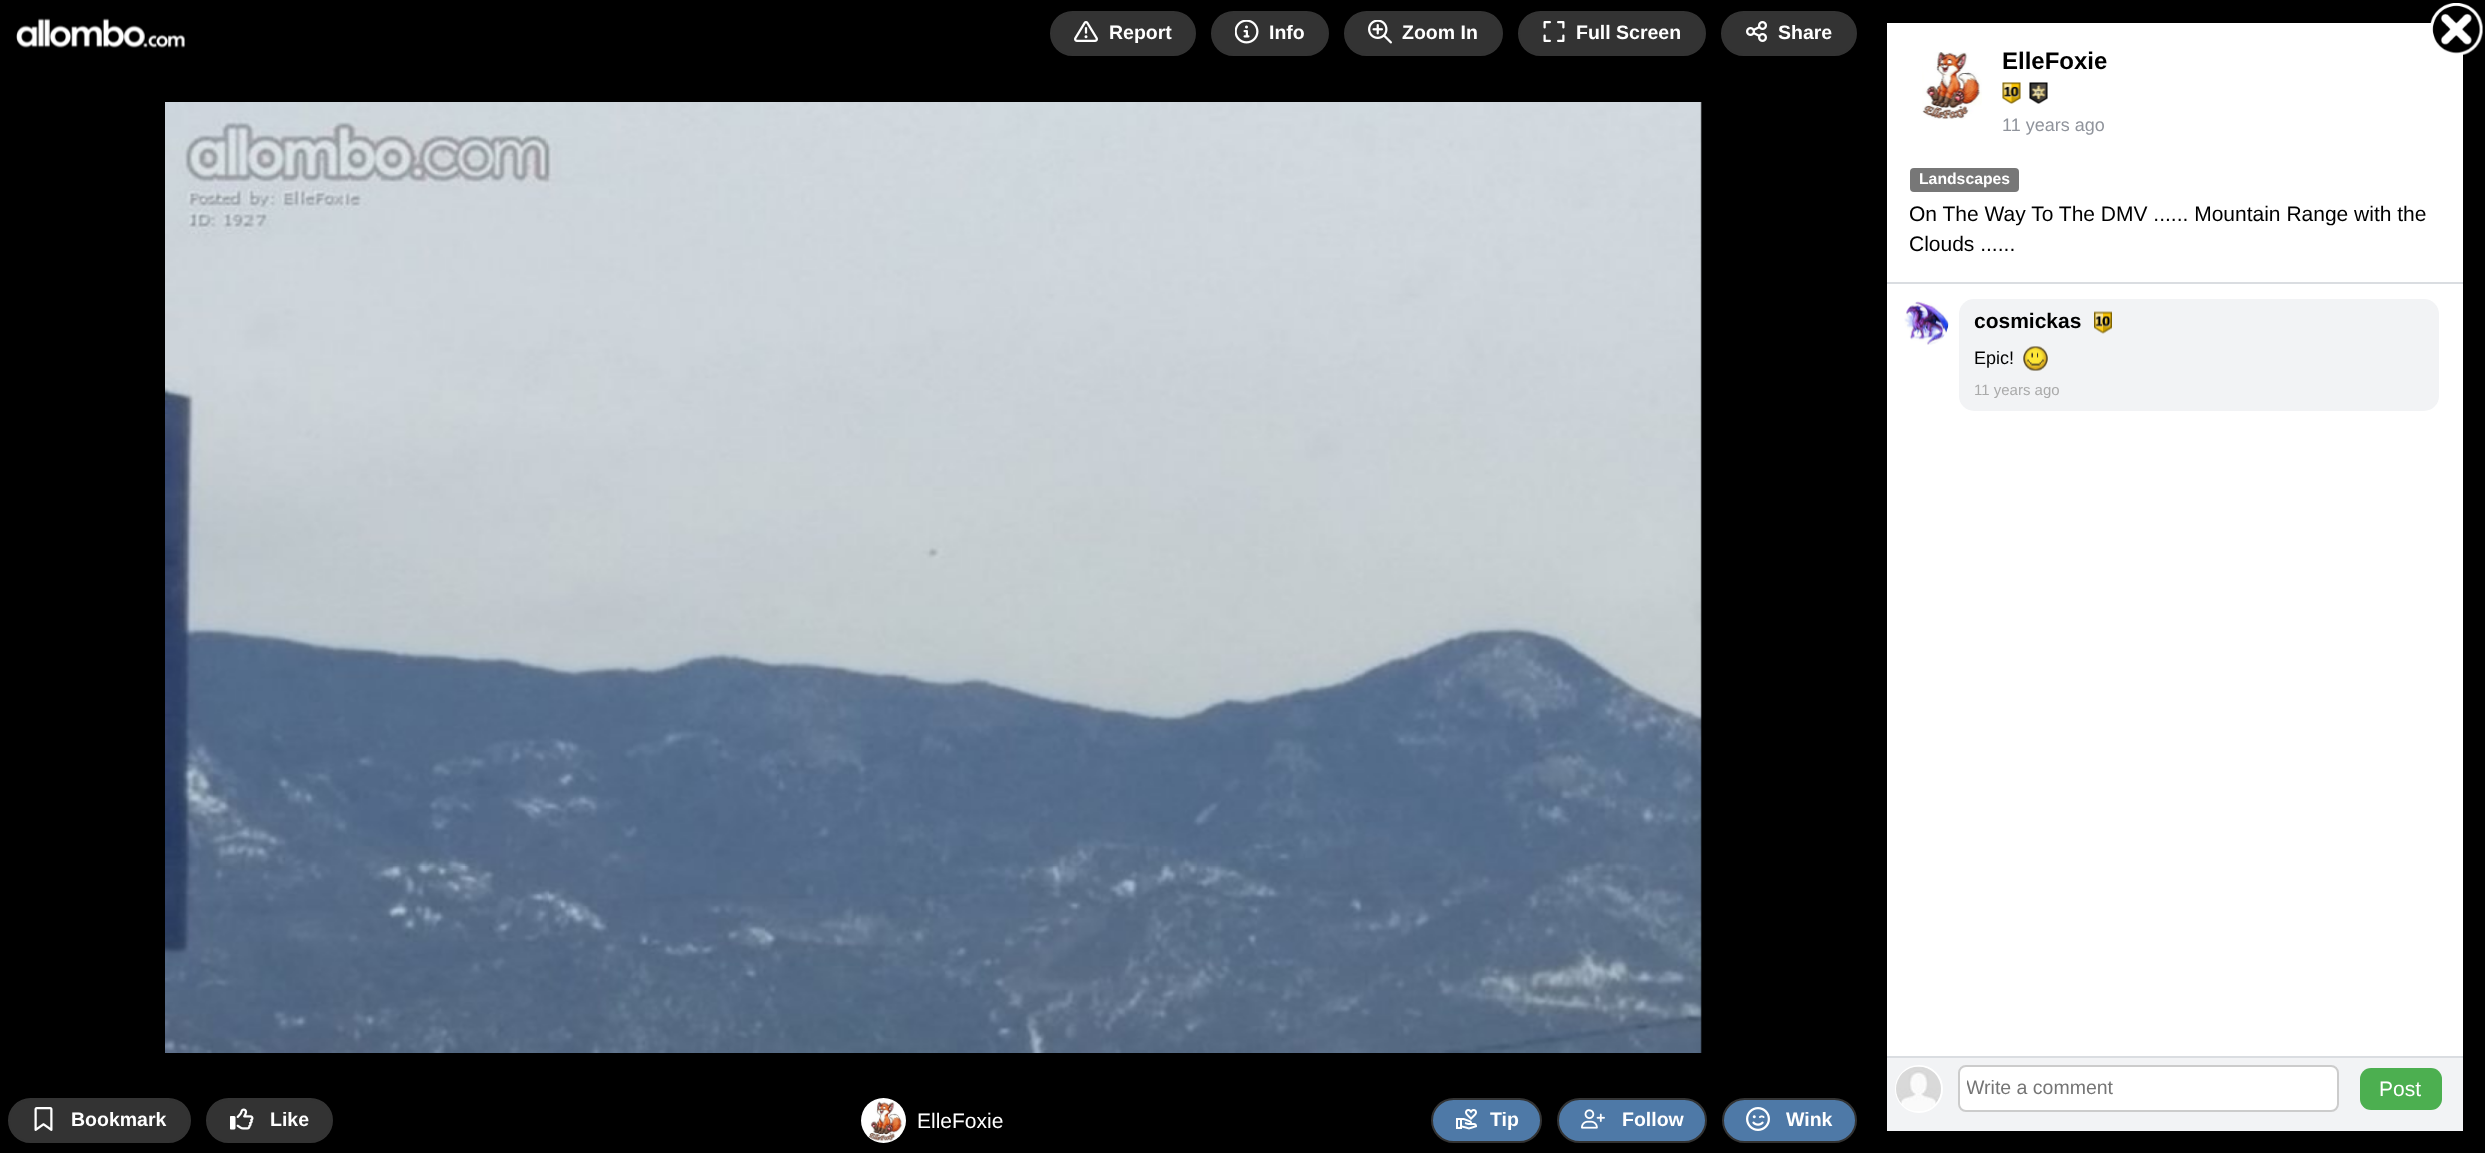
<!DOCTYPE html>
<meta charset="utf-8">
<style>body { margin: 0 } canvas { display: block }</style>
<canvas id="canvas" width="2485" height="1153"></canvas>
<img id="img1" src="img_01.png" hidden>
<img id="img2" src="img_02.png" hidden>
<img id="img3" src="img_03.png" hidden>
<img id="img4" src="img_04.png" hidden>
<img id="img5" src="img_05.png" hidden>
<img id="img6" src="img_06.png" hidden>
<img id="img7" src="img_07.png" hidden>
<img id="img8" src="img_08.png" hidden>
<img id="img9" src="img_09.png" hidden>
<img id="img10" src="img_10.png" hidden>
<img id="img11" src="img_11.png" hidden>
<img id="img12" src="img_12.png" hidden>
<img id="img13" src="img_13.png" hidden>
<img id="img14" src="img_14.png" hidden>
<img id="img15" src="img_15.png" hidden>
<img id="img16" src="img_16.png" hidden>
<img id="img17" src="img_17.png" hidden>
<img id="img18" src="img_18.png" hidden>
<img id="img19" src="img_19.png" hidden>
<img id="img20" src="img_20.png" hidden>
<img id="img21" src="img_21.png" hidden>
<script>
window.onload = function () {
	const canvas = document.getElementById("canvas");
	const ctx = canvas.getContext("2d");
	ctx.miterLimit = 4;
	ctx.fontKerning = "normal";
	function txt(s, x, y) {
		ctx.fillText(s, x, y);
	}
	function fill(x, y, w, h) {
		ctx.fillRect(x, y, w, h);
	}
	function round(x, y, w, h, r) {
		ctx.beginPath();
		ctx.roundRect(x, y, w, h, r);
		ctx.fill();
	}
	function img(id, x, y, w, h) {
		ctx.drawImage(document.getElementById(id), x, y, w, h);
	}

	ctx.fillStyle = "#000000";
	fill(0, 0, 2485, 1153);
	img("img1", 16, 18, 170, 30);
	ctx.fillStyle = "#333333";
	ctx.beginPath();
	ctx.roundRect(1051, 12, 144, 43, 21.5);
	ctx.fill();
	ctx.strokeStyle = "#333333";
	ctx.lineWidth = 2;
	ctx.stroke();
	img("img2", 1074, 21, 24, 21);
	ctx.beginPath();
	ctx.roundRect(1212, 12, 116, 43, 21.5);
	ctx.fill();
	ctx.stroke();
	img("img3", 1235, 20, 24, 24);
	ctx.beginPath();
	ctx.roundRect(1345, 12, 157, 43, 21.5);
	ctx.fill();
	ctx.stroke();
	img("img4", 1368, 20, 24, 24);
	ctx.beginPath();
	ctx.roundRect(1519, 12, 186, 43, 21.5);
	ctx.fill();
	ctx.stroke();
	img("img5", 1543, 21, 22, 21);
	ctx.beginPath();
	ctx.roundRect(1722, 12, 134, 43, 21.5);
	ctx.fill();
	ctx.stroke();
	img("img6", 1746, 21, 21, 21);
	ctx.beginPath();
	ctx.roundRect(9, 1099, 181, 43, 21.5);
	ctx.fill();
	ctx.stroke();
	img("img7", 34, 1107, 19, 24);
	ctx.beginPath();
	ctx.roundRect(207, 1099, 125, 43, 21.5);
	ctx.fill();
	ctx.stroke();
	img("img8", 230, 1108, 24, 22);
	img("img9", 861, 1098, 45, 45);
	ctx.fillStyle = "#4E79A7";
	ctx.beginPath();
	ctx.roundRect(1432, 1099, 109, 43, 21.5);
	ctx.fill();
	ctx.stroke();
	img("img10", 1456, 1109, 21, 21);
	ctx.beginPath();
	ctx.roundRect(1558, 1099, 148, 43, 21.5);
	ctx.fill();
	ctx.stroke();
	img("img11", 1581, 1109, 24, 20);
	ctx.beginPath();
	ctx.roundRect(1723, 1099, 133, 43, 21.5);
	ctx.fill();
	ctx.stroke();
	img("img12", 1746, 1107, 24, 24);
	img("img13", 165, 102, 1537, 951);
	ctx.fillStyle = "#FFFFFF";
	fill(1887, 23, 576, 1033);
	img("img14", 2430, 3, 53, 52);
	img("img15", 1922, 52, 60, 68);
	img("img16", 2002, 82, 19, 22);
	img("img17", 2029, 82, 19, 22);
	ctx.fillStyle = "#DADDE1";
	fill(1887, 282, 576, 2);
	ctx.fillStyle = "#777777";
	round(1910, 168, 109, 24, 4);
	img("img18", 1904, 301, 45, 44);
	ctx.fillStyle = "#F2F3F5";
	round(1959, 299, 480, 112, 15);
	img("img19", 2094, 311, 18, 23);
	img("img20", 2023, 346, 25, 25);
	fill(1887, 1058, 576, 73);
	ctx.fillStyle = "#DADDE1";
	fill(1887, 1056, 576, 2);
	ctx.beginPath();
	ctx.arc(1919, 1089, 23, 0, Math.PI * 2);
	ctx.strokeStyle = "#FFFFFF";
	ctx.stroke();
	img("img21", 1896, 1066, 45, 45);
	ctx.fillStyle = "#FFFFFF";
	ctx.beginPath();
	ctx.roundRect(1959, 1066, 379, 45, 7);
	ctx.fill();
	ctx.strokeStyle = "#CCCCCC";
	ctx.stroke();
	ctx.fillStyle = "#4CAF50";
	round(2360, 1068, 82, 42, 11);
	ctx.font = "bold 19.5px Liberation Sans";
	ctx.fillStyle = "#FFFFFF";
	txt("Report", 1109, 39);
	txt("Info", 1269, 39);
	txt("Zoom In", 1402, 39);
	txt("Full Screen", 1576, 39);
	txt("Share", 1778, 39);
	txt("Bookmark", 71, 1126);
	txt("Like", 270, 1126);
	ctx.font = "21px Liberation Sans";
	txt("ElleFoxie", 917, 1128);
	ctx.font = "bold 19.5px Liberation Sans";
	txt("Tip", 1490, 1126);
	txt("Follow", 1622, 1126);
	txt("Wink", 1786, 1126);
	ctx.font = "bold 24px Liberation Sans";
	ctx.fillStyle = "#000000";
	txt("ElleFoxie", 2002, 69);
	ctx.font = "18px Liberation Sans";
	ctx.fillStyle = "#90949C";
	txt("11 years ago", 2002, 131);
	ctx.font = "bold 15.75px Liberation Sans";
	ctx.fillStyle = "#FFFFFF";
	txt("Landscapes", 1919, 184);
	ctx.font = "21px Liberation Sans";
	ctx.fillStyle = "#000000";
	txt("On The Way To The DMV ...... Mountain Range with the", 1909, 221);
	txt("Clouds ......", 1909, 251);
	ctx.font = "bold 21px Liberation Sans";
	txt("cosmickas", 1974, 328);
	ctx.font = "18px Liberation Sans";
	txt("Epic!", 1974, 364);
	ctx.font = "15px Liberation Sans";
	ctx.fillStyle = "#AAAAAA";
	txt("11 years ago", 1974, 395);
	ctx.save();
	ctx.beginPath();
	ctx.rect(1967, 1076, 363, 22);
	ctx.clip();
	ctx.font = "19.5px Liberation Sans";
	ctx.fillStyle = "#757575";
	txt("Write a comment", 1966, 1094);
	ctx.restore();
	ctx.font = "21px Liberation Sans";
	ctx.fillStyle = "#FFFFFF";
	txt("Post", 2379, 1096);
};
</script>
